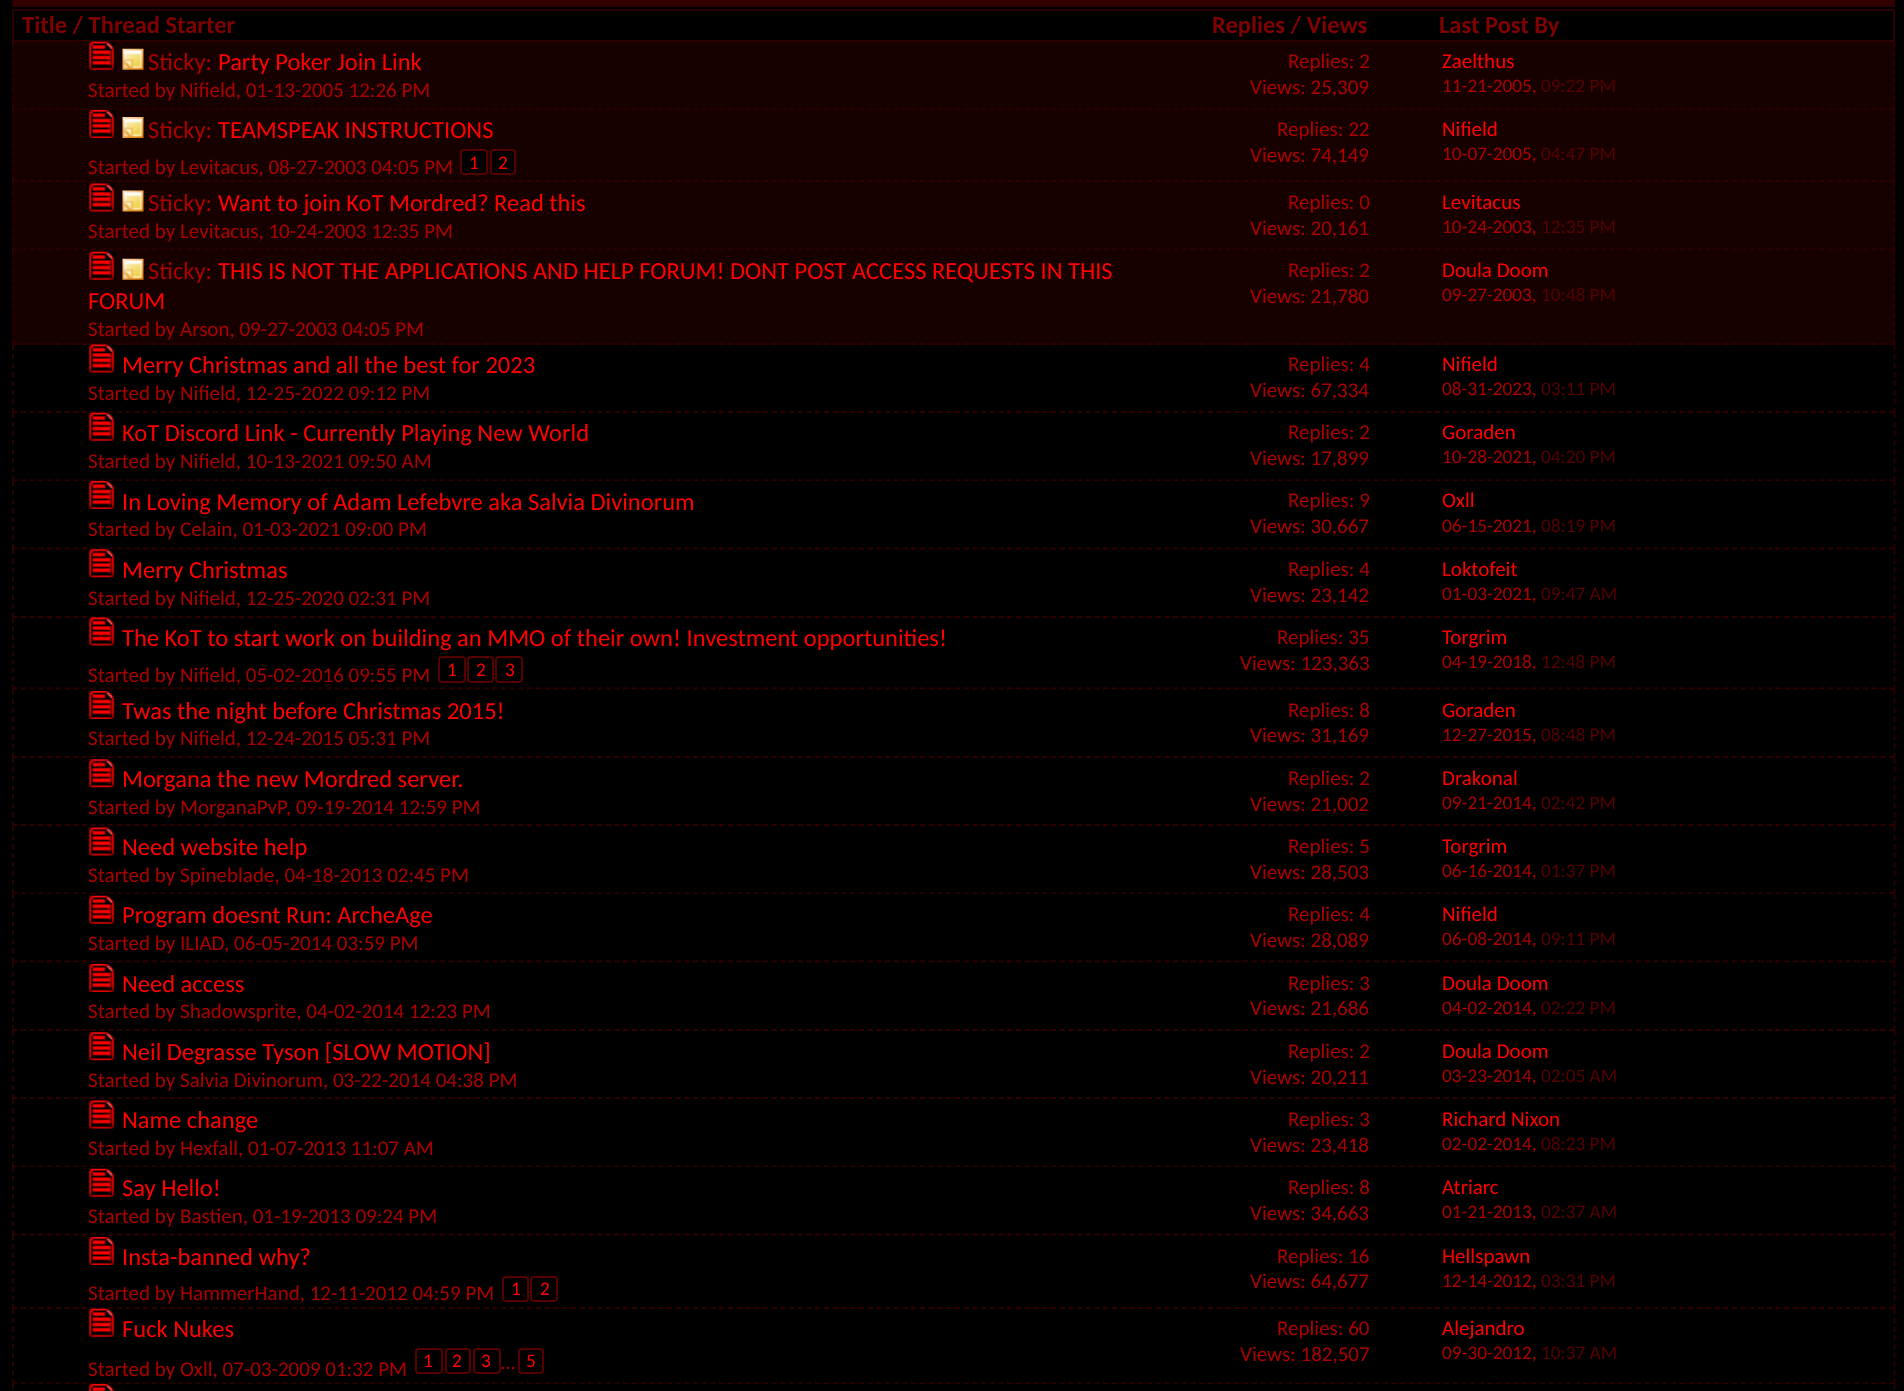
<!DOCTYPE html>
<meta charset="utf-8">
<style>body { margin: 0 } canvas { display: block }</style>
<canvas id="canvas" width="1904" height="1391"></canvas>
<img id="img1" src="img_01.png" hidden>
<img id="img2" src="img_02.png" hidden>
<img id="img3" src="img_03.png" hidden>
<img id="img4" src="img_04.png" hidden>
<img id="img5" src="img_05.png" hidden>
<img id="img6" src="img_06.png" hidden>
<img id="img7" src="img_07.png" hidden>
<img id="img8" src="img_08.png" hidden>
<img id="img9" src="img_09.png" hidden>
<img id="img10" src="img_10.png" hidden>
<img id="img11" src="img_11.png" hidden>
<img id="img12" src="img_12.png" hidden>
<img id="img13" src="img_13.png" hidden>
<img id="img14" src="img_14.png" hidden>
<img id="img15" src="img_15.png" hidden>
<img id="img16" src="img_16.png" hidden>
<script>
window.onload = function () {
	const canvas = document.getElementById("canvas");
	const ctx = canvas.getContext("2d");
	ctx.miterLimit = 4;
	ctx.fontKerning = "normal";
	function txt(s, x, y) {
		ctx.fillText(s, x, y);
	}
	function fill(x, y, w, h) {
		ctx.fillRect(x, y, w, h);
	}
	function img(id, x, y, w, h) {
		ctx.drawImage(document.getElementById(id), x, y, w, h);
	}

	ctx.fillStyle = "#000000";
	fill(0, 0, 1904, 1391);
	ctx.fillStyle = "#330000";
	ctx.beginPath();
	ctx.rect(13, -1, 1881, 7);
	ctx.fill();
	ctx.strokeStyle = "#2C0000";
	ctx.lineWidth = 2;
	ctx.stroke();
	ctx.strokeRect(13, 10, 1881, 31);
	ctx.fillStyle = "#160000";
	fill(12, 42, 1883, 68);
	ctx.beginPath();
	ctx.moveTo(1894.5, 42);
	ctx.lineTo(1894.5, 110);
	ctx.lineWidth = 1.8;
	ctx.setLineDash([5.25, 3.75]);
	ctx.stroke();
	ctx.beginPath();
	ctx.moveTo(12, 109.5);
	ctx.lineTo(1895, 109.5);
	ctx.setLineDash([5.25, 3.48]);
	ctx.stroke();
	ctx.beginPath();
	ctx.moveTo(13, 42);
	ctx.lineTo(13, 110);
	ctx.setLineDash([5.25, 3.75]);
	ctx.stroke();
	img("img1", 87, 41, 29, 29);
	img("img2", 122, 48, 22, 22);
	fill(12, 110, 1883, 140);
	ctx.beginPath();
	ctx.moveTo(1894.5, 110);
	ctx.lineTo(1894.5, 182);
	ctx.setLineDash([5.25, 3.06]);
	ctx.stroke();
	ctx.beginPath();
	ctx.moveTo(12, 181);
	ctx.lineTo(1895, 181);
	ctx.setLineDash([5.25, 3.48]);
	ctx.stroke();
	ctx.beginPath();
	ctx.moveTo(13, 110);
	ctx.lineTo(13, 182);
	ctx.setLineDash([5.25, 3.06]);
	ctx.stroke();
	img("img3", 87, 110, 29, 28);
	img("img4", 122, 117, 22, 21);
	ctx.fillStyle = "#000000";
	ctx.beginPath();
	ctx.roundRect(461, 150, 26, 24, 3);
	ctx.fill();
	ctx.strokeStyle = "#560000";
	ctx.lineWidth = 2;
	ctx.setLineDash([]);
	ctx.stroke();
	ctx.beginPath();
	ctx.roundRect(491, 150, 24, 24, 3);
	ctx.fill();
	ctx.stroke();
	ctx.beginPath();
	ctx.moveTo(1894.5, 182);
	ctx.lineTo(1894.5, 250);
	ctx.strokeStyle = "#2C0000";
	ctx.lineWidth = 1.8;
	ctx.setLineDash([5.25, 3.75]);
	ctx.stroke();
	ctx.beginPath();
	ctx.moveTo(12, 249.5);
	ctx.lineTo(1895, 249.5);
	ctx.setLineDash([5.25, 3.48]);
	ctx.stroke();
	ctx.beginPath();
	ctx.moveTo(13, 182);
	ctx.lineTo(13, 250);
	ctx.setLineDash([5.25, 3.75]);
	ctx.stroke();
	img("img5", 87, 183, 29, 29);
	img("img6", 122, 190, 22, 22);
	ctx.fillStyle = "#160000";
	fill(12, 250, 1883, 95);
	ctx.beginPath();
	ctx.moveTo(1894.5, 250);
	ctx.lineTo(1894.5, 345);
	ctx.setLineDash([5.25, 3.68]);
	ctx.stroke();
	ctx.beginPath();
	ctx.moveTo(12, 344);
	ctx.lineTo(1895, 344);
	ctx.setLineDash([5.25, 3.48]);
	ctx.stroke();
	ctx.beginPath();
	ctx.moveTo(13, 250);
	ctx.lineTo(13, 345);
	ctx.setLineDash([5.25, 3.68]);
	ctx.stroke();
	img("img7", 87, 251, 29, 29);
	img("img2", 122, 258, 22, 22);
	ctx.beginPath();
	ctx.moveTo(1894.5, 345);
	ctx.lineTo(1894.5, 413);
	ctx.setLineDash([5.25, 3.75]);
	ctx.stroke();
	ctx.beginPath();
	ctx.moveTo(12, 412);
	ctx.lineTo(1895, 412);
	ctx.setLineDash([5.25, 3.48]);
	ctx.stroke();
	ctx.beginPath();
	ctx.moveTo(13, 345);
	ctx.lineTo(13, 413);
	ctx.setLineDash([5.25, 3.75]);
	ctx.stroke();
	img("img8", 87, 344, 29, 29);
	ctx.beginPath();
	ctx.moveTo(1894.5, 413);
	ctx.lineTo(1894.5, 481);
	ctx.stroke();
	ctx.beginPath();
	ctx.moveTo(12, 480.5);
	ctx.lineTo(1895, 480.5);
	ctx.setLineDash([5.25, 3.48]);
	ctx.stroke();
	ctx.beginPath();
	ctx.moveTo(13, 413);
	ctx.lineTo(13, 481);
	ctx.setLineDash([5.25, 3.75]);
	ctx.stroke();
	img("img9", 88, 412, 27, 29);
	ctx.fillStyle = "#000000";
	fill(12, 481, 1883, 1);
	ctx.beginPath();
	ctx.moveTo(1894.5, 481);
	ctx.lineTo(1894.5, 549.5);
	ctx.stroke();
	ctx.beginPath();
	ctx.moveTo(12, 548.5);
	ctx.lineTo(1895, 548.5);
	ctx.setLineDash([5.25, 3.48]);
	ctx.stroke();
	ctx.beginPath();
	ctx.moveTo(13, 481);
	ctx.lineTo(13, 549.5);
	ctx.setLineDash([5.25, 3.75]);
	ctx.stroke();
	img("img10", 88, 481, 27, 28);
	ctx.beginPath();
	ctx.moveTo(1894.5, 549.5);
	ctx.lineTo(1894.5, 618);
	ctx.stroke();
	ctx.beginPath();
	ctx.moveTo(12, 617);
	ctx.lineTo(1895, 617);
	ctx.setLineDash([5.25, 3.48]);
	ctx.stroke();
	ctx.beginPath();
	ctx.moveTo(13, 549.5);
	ctx.lineTo(13, 618);
	ctx.setLineDash([5.25, 3.75]);
	ctx.stroke();
	img("img11", 88, 549, 27, 29);
	ctx.beginPath();
	ctx.moveTo(1894.5, 618);
	ctx.lineTo(1894.5, 689.5);
	ctx.setLineDash([5.25, 3.06]);
	ctx.stroke();
	ctx.beginPath();
	ctx.moveTo(12, 688.5);
	ctx.lineTo(1895, 688.5);
	ctx.setLineDash([5.25, 3.48]);
	ctx.stroke();
	ctx.beginPath();
	ctx.moveTo(13, 618);
	ctx.lineTo(13, 689.5);
	ctx.setLineDash([5.25, 3.06]);
	ctx.stroke();
	img("img12", 88, 617, 27, 29);
	ctx.beginPath();
	ctx.roundRect(439, 657, 26, 25, 3);
	ctx.strokeStyle = "#560000";
	ctx.lineWidth = 2;
	ctx.setLineDash([]);
	ctx.stroke();
	ctx.beginPath();
	ctx.roundRect(468, 657, 25, 25, 3);
	ctx.stroke();
	ctx.beginPath();
	ctx.roundRect(496, 657, 26, 25, 3);
	ctx.stroke();
	ctx.beginPath();
	ctx.moveTo(1894.5, 689.5);
	ctx.lineTo(1894.5, 758);
	ctx.strokeStyle = "#2C0000";
	ctx.lineWidth = 1.8;
	ctx.setLineDash([5.25, 3.75]);
	ctx.stroke();
	ctx.beginPath();
	ctx.moveTo(12, 757);
	ctx.lineTo(1895, 757);
	ctx.setLineDash([5.25, 3.48]);
	ctx.stroke();
	ctx.beginPath();
	ctx.moveTo(13, 689.5);
	ctx.lineTo(13, 758);
	ctx.setLineDash([5.25, 3.75]);
	ctx.stroke();
	img("img10", 88, 691, 27, 28);
	ctx.beginPath();
	ctx.moveTo(1894.5, 758);
	ctx.lineTo(1894.5, 826);
	ctx.stroke();
	ctx.beginPath();
	ctx.moveTo(12, 825);
	ctx.lineTo(1895, 825);
	ctx.setLineDash([5.25, 3.48]);
	ctx.stroke();
	ctx.beginPath();
	ctx.moveTo(13, 758);
	ctx.lineTo(13, 826);
	ctx.setLineDash([5.25, 3.75]);
	ctx.stroke();
	img("img13", 88, 759, 27, 29);
	ctx.beginPath();
	ctx.moveTo(1894.5, 826);
	ctx.lineTo(1894.5, 894);
	ctx.stroke();
	ctx.beginPath();
	ctx.moveTo(12, 893.5);
	ctx.lineTo(1895, 893.5);
	ctx.setLineDash([5.25, 3.48]);
	ctx.stroke();
	ctx.beginPath();
	ctx.moveTo(13, 826);
	ctx.lineTo(13, 894);
	ctx.setLineDash([5.25, 3.75]);
	ctx.stroke();
	img("img14", 88, 827, 27, 29);
	fill(12, 894, 1883, 1);
	ctx.beginPath();
	ctx.moveTo(1894.5, 894);
	ctx.lineTo(1894.5, 962.5);
	ctx.stroke();
	ctx.beginPath();
	ctx.moveTo(12, 961.5);
	ctx.lineTo(1895, 961.5);
	ctx.setLineDash([5.25, 3.48]);
	ctx.stroke();
	ctx.beginPath();
	ctx.moveTo(13, 894);
	ctx.lineTo(13, 962.5);
	ctx.setLineDash([5.25, 3.75]);
	ctx.stroke();
	img("img15", 88, 895, 27, 29);
	ctx.beginPath();
	ctx.moveTo(1894.5, 962.5);
	ctx.lineTo(1894.5, 1031);
	ctx.stroke();
	ctx.beginPath();
	ctx.moveTo(12, 1030);
	ctx.lineTo(1895, 1030);
	ctx.setLineDash([5.25, 3.48]);
	ctx.stroke();
	ctx.beginPath();
	ctx.moveTo(13, 962.5);
	ctx.lineTo(13, 1031);
	ctx.setLineDash([5.25, 3.75]);
	ctx.stroke();
	img("img10", 88, 964, 27, 28);
	ctx.beginPath();
	ctx.moveTo(1894.5, 1031);
	ctx.lineTo(1894.5, 1099);
	ctx.stroke();
	ctx.beginPath();
	ctx.moveTo(12, 1098);
	ctx.lineTo(1895, 1098);
	ctx.setLineDash([5.25, 3.48]);
	ctx.stroke();
	ctx.beginPath();
	ctx.moveTo(13, 1031);
	ctx.lineTo(13, 1099);
	ctx.setLineDash([5.25, 3.75]);
	ctx.stroke();
	img("img13", 88, 1032, 27, 29);
	ctx.beginPath();
	ctx.moveTo(1894.5, 1099);
	ctx.lineTo(1894.5, 1167);
	ctx.stroke();
	ctx.beginPath();
	ctx.moveTo(12, 1166.5);
	ctx.lineTo(1895, 1166.5);
	ctx.setLineDash([5.25, 3.48]);
	ctx.stroke();
	ctx.beginPath();
	ctx.moveTo(13, 1099);
	ctx.lineTo(13, 1167);
	ctx.setLineDash([5.25, 3.75]);
	ctx.stroke();
	img("img14", 88, 1100, 27, 29);
	fill(12, 1167, 1883, 1);
	ctx.beginPath();
	ctx.moveTo(1894.5, 1167);
	ctx.lineTo(1894.5, 1235.5);
	ctx.stroke();
	ctx.beginPath();
	ctx.moveTo(12, 1234.5);
	ctx.lineTo(1895, 1234.5);
	ctx.setLineDash([5.25, 3.48]);
	ctx.stroke();
	ctx.beginPath();
	ctx.moveTo(13, 1167);
	ctx.lineTo(13, 1235.5);
	ctx.setLineDash([5.25, 3.75]);
	ctx.stroke();
	img("img15", 88, 1168, 27, 29);
	ctx.beginPath();
	ctx.moveTo(1894.5, 1235.5);
	ctx.lineTo(1894.5, 1309);
	ctx.setLineDash([5.25, 3.29]);
	ctx.stroke();
	ctx.beginPath();
	ctx.moveTo(12, 1308);
	ctx.lineTo(1895, 1308);
	ctx.setLineDash([5.25, 3.48]);
	ctx.stroke();
	ctx.beginPath();
	ctx.moveTo(13, 1235.5);
	ctx.lineTo(13, 1309);
	ctx.setLineDash([5.25, 3.29]);
	ctx.stroke();
	img("img10", 88, 1237, 27, 28);
	ctx.beginPath();
	ctx.roundRect(503, 1277, 25, 24, 3);
	ctx.strokeStyle = "#560000";
	ctx.lineWidth = 2;
	ctx.setLineDash([]);
	ctx.stroke();
	ctx.beginPath();
	ctx.roundRect(531, 1277, 26, 24, 3);
	ctx.stroke();
	ctx.beginPath();
	ctx.moveTo(1894.5, 1309);
	ctx.lineTo(1894.5, 1384);
	ctx.strokeStyle = "#2C0000";
	ctx.lineWidth = 1.8;
	ctx.setLineDash([5.25, 3.5]);
	ctx.stroke();
	ctx.beginPath();
	ctx.moveTo(12, 1383.5);
	ctx.lineTo(1895, 1383.5);
	ctx.setLineDash([5.25, 3.48]);
	ctx.stroke();
	ctx.beginPath();
	ctx.moveTo(13, 1309);
	ctx.lineTo(13, 1384);
	ctx.setLineDash([5.25, 3.5]);
	ctx.stroke();
	img("img9", 88, 1308, 27, 29);
	ctx.beginPath();
	ctx.roundRect(416, 1349, 26, 24, 3);
	ctx.strokeStyle = "#560000";
	ctx.lineWidth = 2;
	ctx.setLineDash([]);
	ctx.stroke();
	ctx.beginPath();
	ctx.roundRect(446, 1349, 24, 24, 3);
	ctx.stroke();
	ctx.beginPath();
	ctx.roundRect(474, 1349, 26, 24, 3);
	ctx.stroke();
	ctx.beginPath();
	ctx.roundRect(519, 1349, 24, 24, 3);
	ctx.stroke();
	fill(12, 1384, 1883, 1);
	ctx.beginPath();
	ctx.moveTo(1894.5, 1384);
	ctx.lineTo(1894.5, 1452.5);
	ctx.strokeStyle = "#2C0000";
	ctx.lineWidth = 1.8;
	ctx.setLineDash([5.25, 3.75]);
	ctx.stroke();
	ctx.beginPath();
	ctx.moveTo(13, 1384);
	ctx.lineTo(13, 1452.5);
	ctx.stroke();
	img("img16", 88, 1384, 27, 7);
	ctx.font = "bold 24.5px Carlito";
	ctx.fillStyle = "#810000";
	txt("Title / Thread Starter", 22, 33);
	txt("Replies / Views", 1212, 33);
	txt("Last Post By", 1439, 33);
	ctx.font = "24.5px Carlito";
	ctx.fillStyle = "#AC0000";
	txt("Sticky:", 148, 70);
	ctx.fillStyle = "#FF0000";
	txt("Party Poker Join Link", 218, 70);
	ctx.font = "21px Carlito";
	ctx.fillStyle = "#AC0000";
	txt("Started by Nifield, 01-13-2005 12:26 PM", 88, 97);
	txt("Replies: 2", 1288, 68);
	txt("Views: 25,309", 1250, 94);
	ctx.fillStyle = "#FF0000";
	txt("Zaelthus", 1442, 68);
	ctx.font = "19.25px Carlito";
	ctx.fillStyle = "#AC0000";
	txt("11-21-2005,", 1442, 92);
	ctx.fillStyle = "#560000";
	txt("09:22 PM", 1541, 92);
	ctx.font = "24.5px Carlito";
	ctx.fillStyle = "#AC0000";
	txt("Sticky:", 148, 138);
	ctx.fillStyle = "#FF0000";
	txt("TEAMSPEAK INSTRUCTIONS", 218, 138);
	ctx.font = "21px Carlito";
	ctx.fillStyle = "#AC0000";
	txt("Started by Levitacus, 08-27-2003 04:05 PM", 88, 174);
	ctx.font = "19.25px Carlito";
	ctx.fillStyle = "#FF0000";
	txt("1", 469, 169);
	txt("2", 498, 169);
	ctx.font = "21px Carlito";
	ctx.fillStyle = "#AC0000";
	txt("Replies: 22", 1277, 136);
	txt("Views: 74,149", 1250, 162);
	ctx.fillStyle = "#FF0000";
	txt("Nifield", 1442, 136);
	ctx.font = "19.25px Carlito";
	ctx.fillStyle = "#AC0000";
	txt("10-07-2005,", 1442, 160);
	ctx.fillStyle = "#560000";
	txt("04:47 PM", 1541, 160);
	ctx.font = "24.5px Carlito";
	ctx.fillStyle = "#AC0000";
	txt("Sticky:", 148, 211);
	ctx.fillStyle = "#FF0000";
	txt("Want to join KoT Mordred? Read this", 218, 211);
	ctx.font = "21px Carlito";
	ctx.fillStyle = "#AC0000";
	txt("Started by Levitacus, 10-24-2003 12:35 PM", 88, 238);
	txt("Replies: 0", 1288, 209);
	txt("Views: 20,161", 1250, 235);
	ctx.fillStyle = "#FF0000";
	txt("Levitacus", 1442, 209);
	ctx.font = "19.25px Carlito";
	ctx.fillStyle = "#AC0000";
	txt("10-24-2003,", 1442, 233);
	ctx.fillStyle = "#560000";
	txt("12:35 PM", 1541, 233);
	ctx.font = "24.5px Carlito";
	ctx.fillStyle = "#AC0000";
	txt("Sticky:", 148, 279);
	ctx.fillStyle = "#FF0000";
	txt("THIS IS NOT THE APPLICATIONS AND HELP FORUM! DONT POST ACCESS REQUESTS IN THIS", 218, 279);
	txt("FORUM", 88, 309);
	ctx.font = "21px Carlito";
	ctx.fillStyle = "#AC0000";
	txt("Started by Arson, 09-27-2003 04:05 PM", 88, 336);
	txt("Replies: 2", 1288, 277);
	txt("Views: 21,780", 1250, 303);
	ctx.fillStyle = "#FF0000";
	txt("Doula Doom", 1442, 277);
	ctx.font = "19.25px Carlito";
	ctx.fillStyle = "#AC0000";
	txt("09-27-2003,", 1442, 301);
	ctx.fillStyle = "#560000";
	txt("10:48 PM", 1541, 301);
	ctx.font = "24.5px Carlito";
	ctx.fillStyle = "#FF0000";
	txt("Merry Christmas and all the best for 2023", 122, 373);
	ctx.font = "21px Carlito";
	ctx.fillStyle = "#AC0000";
	txt("Started by Nifield, 12-25-2022 09:12 PM", 88, 400);
	txt("Replies: 4", 1288, 371);
	txt("Views: 67,334", 1250, 397);
	ctx.fillStyle = "#FF0000";
	txt("Nifield", 1442, 371);
	ctx.font = "19.25px Carlito";
	ctx.fillStyle = "#AC0000";
	txt("08-31-2023,", 1442, 395);
	ctx.fillStyle = "#560000";
	txt("03:11 PM", 1541, 395);
	ctx.font = "24.5px Carlito";
	ctx.fillStyle = "#FF0000";
	txt("KoT Discord Link - Currently Playing New World", 122, 441);
	ctx.font = "21px Carlito";
	ctx.fillStyle = "#AC0000";
	txt("Started by Nifield, 10-13-2021 09:50 AM", 88, 468);
	txt("Replies: 2", 1288, 439);
	txt("Views: 17,899", 1250, 465);
	ctx.fillStyle = "#FF0000";
	txt("Goraden", 1442, 439);
	ctx.font = "19.25px Carlito";
	ctx.fillStyle = "#AC0000";
	txt("10-28-2021,", 1442, 463);
	ctx.fillStyle = "#560000";
	txt("04:20 PM", 1541, 463);
	ctx.font = "24.5px Carlito";
	ctx.fillStyle = "#FF0000";
	txt("In Loving Memory of Adam Lefebvre aka Salvia Divinorum", 122, 510);
	ctx.font = "21px Carlito";
	ctx.fillStyle = "#AC0000";
	txt("Started by Celain, 01-03-2021 09:00 PM", 88, 536);
	txt("Replies: 9", 1288, 507);
	txt("Views: 30,667", 1250, 533);
	ctx.fillStyle = "#FF0000";
	txt("Oxll", 1442, 507);
	ctx.font = "19.25px Carlito";
	ctx.fillStyle = "#AC0000";
	txt("06-15-2021,", 1442, 532);
	ctx.fillStyle = "#560000";
	txt("08:19 PM", 1541, 532);
	ctx.font = "24.5px Carlito";
	ctx.fillStyle = "#FF0000";
	txt("Merry Christmas", 122, 578);
	ctx.font = "21px Carlito";
	ctx.fillStyle = "#AC0000";
	txt("Started by Nifield, 12-25-2020 02:31 PM", 88, 605);
	txt("Replies: 4", 1288, 576);
	txt("Views: 23,142", 1250, 602);
	ctx.fillStyle = "#FF0000";
	txt("Loktofeit", 1442, 576);
	ctx.font = "19.25px Carlito";
	ctx.fillStyle = "#AC0000";
	txt("01-03-2021,", 1442, 600);
	ctx.fillStyle = "#560000";
	txt("09:47 AM", 1541, 600);
	ctx.font = "24.5px Carlito";
	ctx.fillStyle = "#FF0000";
	txt("The KoT to start work on building an MMO of their own! Investment opportunities!", 122, 646);
	ctx.font = "21px Carlito";
	ctx.fillStyle = "#AC0000";
	txt("Started by Nifield, 05-02-2016 09:55 PM", 88, 682);
	ctx.font = "19.25px Carlito";
	ctx.fillStyle = "#FF0000";
	txt("1", 447, 676);
	txt("2", 476, 676);
	txt("3", 505, 676);
	ctx.font = "21px Carlito";
	ctx.fillStyle = "#AC0000";
	txt("Replies: 35", 1277, 644);
	txt("Views: 123,363", 1240, 670);
	ctx.fillStyle = "#FF0000";
	txt("Torgrim", 1442, 644);
	ctx.font = "19.25px Carlito";
	ctx.fillStyle = "#AC0000";
	txt("04-19-2018,", 1442, 668);
	ctx.fillStyle = "#560000";
	txt("12:48 PM", 1541, 668);
	ctx.font = "24.5px Carlito";
	ctx.fillStyle = "#FF0000";
	txt("Twas the night before Christmas 2015!", 122, 719);
	ctx.font = "21px Carlito";
	ctx.fillStyle = "#AC0000";
	txt("Started by Nifield, 12-24-2015 05:31 PM", 88, 745);
	txt("Replies: 8", 1288, 717);
	txt("Views: 31,169", 1250, 742);
	ctx.fillStyle = "#FF0000";
	txt("Goraden", 1442, 717);
	ctx.font = "19.25px Carlito";
	ctx.fillStyle = "#AC0000";
	txt("12-27-2015,", 1442, 741);
	ctx.fillStyle = "#560000";
	txt("08:48 PM", 1541, 741);
	ctx.font = "24.5px Carlito";
	ctx.fillStyle = "#FF0000";
	txt("Morgana the new Mordred server.", 122, 787);
	ctx.font = "21px Carlito";
	ctx.fillStyle = "#AC0000";
	txt("Started by MorganaPvP", 88, 814);
	txt(", 09-19-2014 12:59 PM", 286, 814);
	txt("Replies: 2", 1288, 785);
	txt("Views: 21,002", 1250, 811);
	ctx.fillStyle = "#FF0000";
	txt("Drakonal", 1442, 785);
	ctx.font = "19.25px Carlito";
	ctx.fillStyle = "#AC0000";
	txt("09-21-2014,", 1442, 809);
	ctx.fillStyle = "#560000";
	txt("02:42 PM", 1541, 809);
	ctx.font = "24.5px Carlito";
	ctx.fillStyle = "#FF0000";
	txt("Need website help", 122, 855);
	ctx.font = "21px Carlito";
	ctx.fillStyle = "#AC0000";
	txt("Started by Spineblade, 04-18-2013 02:45 PM", 88, 882);
	txt("Replies: 5", 1288, 853);
	txt("Views: 28,503", 1250, 879);
	ctx.fillStyle = "#FF0000";
	txt("Torgrim", 1442, 853);
	ctx.font = "19.25px Carlito";
	ctx.fillStyle = "#AC0000";
	txt("06-16-2014,", 1442, 877);
	ctx.fillStyle = "#560000";
	txt("01:37 PM", 1541, 877);
	ctx.font = "24.5px Carlito";
	ctx.fillStyle = "#FF0000";
	txt("Program doesnt Run: ArcheAge", 122, 923);
	ctx.font = "21px Carlito";
	ctx.fillStyle = "#AC0000";
	txt("Started by ILIAD", 88, 950);
	txt(", 06-05-2014 03:59 PM", 224, 950);
	txt("Replies: 4", 1288, 921);
	txt("Views: 28,089", 1250, 947);
	ctx.fillStyle = "#FF0000";
	txt("Nifield", 1442, 921);
	ctx.font = "19.25px Carlito";
	ctx.fillStyle = "#AC0000";
	txt("06-08-2014,", 1442, 945);
	ctx.fillStyle = "#560000";
	txt("09:11 PM", 1541, 945);
	ctx.font = "24.5px Carlito";
	ctx.fillStyle = "#FF0000";
	txt("Need access", 122, 992);
	ctx.font = "21px Carlito";
	ctx.fillStyle = "#AC0000";
	txt("Started by Shadowsprite, 04-02-2014 12:23 PM", 88, 1018);
	txt("Replies: 3", 1288, 990);
	txt("Views: 21,686", 1250, 1015);
	ctx.fillStyle = "#FF0000";
	txt("Doula Doom", 1442, 990);
	ctx.font = "19.25px Carlito";
	ctx.fillStyle = "#AC0000";
	txt("04-02-2014,", 1442, 1014);
	ctx.fillStyle = "#560000";
	txt("02:22 PM", 1541, 1014);
	ctx.font = "24.5px Carlito";
	ctx.fillStyle = "#FF0000";
	txt("Neil Degrasse Tyson [SLOW MOTION]", 122, 1060);
	ctx.font = "21px Carlito";
	ctx.fillStyle = "#AC0000";
	txt("Started by Salvia Divinorum, 03-22-2014 04:38 PM", 88, 1087);
	txt("Replies: 2", 1288, 1058);
	txt("Views: 20,211", 1250, 1084);
	ctx.fillStyle = "#FF0000";
	txt("Doula Doom", 1442, 1058);
	ctx.font = "19.25px Carlito";
	ctx.fillStyle = "#AC0000";
	txt("03-23-2014,", 1442, 1082);
	ctx.fillStyle = "#560000";
	txt("02:05 AM", 1541, 1082);
	ctx.font = "24.5px Carlito";
	ctx.fillStyle = "#FF0000";
	txt("Name change", 122, 1128);
	ctx.font = "21px Carlito";
	ctx.fillStyle = "#AC0000";
	txt("Started by Hexfall, 01-07-2013 11:07 AM", 88, 1155);
	txt("Replies: 3", 1288, 1126);
	txt("Views: 23,418", 1250, 1152);
	ctx.fillStyle = "#FF0000";
	txt("Richard Nixon", 1442, 1126);
	ctx.font = "19.25px Carlito";
	ctx.fillStyle = "#AC0000";
	txt("02-02-2014,", 1442, 1150);
	ctx.fillStyle = "#560000";
	txt("08:23 PM", 1541, 1150);
	ctx.font = "24.5px Carlito";
	ctx.fillStyle = "#FF0000";
	txt("Say Hello!", 122, 1196);
	ctx.font = "21px Carlito";
	ctx.fillStyle = "#AC0000";
	txt("Started by Bastien, 01-19-2013 09:24 PM", 88, 1223);
	txt("Replies: 8", 1288, 1194);
	txt("Views: 34,663", 1250, 1220);
	ctx.fillStyle = "#FF0000";
	txt("Atriarc", 1442, 1194);
	ctx.font = "19.25px Carlito";
	ctx.fillStyle = "#AC0000";
	txt("01-21-2013,", 1442, 1218);
	ctx.fillStyle = "#560000";
	txt("02:37 AM", 1541, 1218);
	ctx.font = "24.5px Carlito";
	ctx.fillStyle = "#FF0000";
	txt("Insta-banned why?", 122, 1265);
	ctx.font = "21px Carlito";
	ctx.fillStyle = "#AC0000";
	txt("Started by HammerHand, 12-11-2012 04:59 PM", 88, 1300);
	ctx.font = "19.25px Carlito";
	ctx.fillStyle = "#FF0000";
	txt("1", 511, 1295);
	txt("2", 540, 1295);
	ctx.font = "21px Carlito";
	ctx.fillStyle = "#AC0000";
	txt("Replies: 16", 1277, 1263);
	txt("Views: 64,677", 1250, 1288);
	ctx.fillStyle = "#FF0000";
	txt("Hellspawn", 1442, 1263);
	ctx.font = "19.25px Carlito";
	ctx.fillStyle = "#AC0000";
	txt("12-14-2012,", 1442, 1287);
	ctx.fillStyle = "#560000";
	txt("03:31 PM", 1541, 1287);
	ctx.font = "24.5px Carlito";
	ctx.fillStyle = "#FF0000";
	txt("Fuck Nukes", 122, 1337);
	ctx.font = "21px Carlito";
	ctx.fillStyle = "#AC0000";
	txt("Started by Oxll, 07-03-2009 01:32 PM", 88, 1376);
	ctx.font = "19.25px Carlito";
	ctx.fillStyle = "#FF0000";
	txt("1", 423, 1367);
	txt("2", 452, 1367);
	txt("3", 481, 1367);
	ctx.font = "21px Carlito";
	ctx.fillStyle = "#AC0000";
	txt("...", 500, 1369);
	ctx.font = "19.25px Carlito";
	ctx.fillStyle = "#FF0000";
	txt("5", 526, 1367);
	ctx.font = "21px Carlito";
	ctx.fillStyle = "#AC0000";
	txt("Replies: 60", 1277, 1335);
	txt("Views: 182,507", 1240, 1361);
	ctx.fillStyle = "#FF0000";
	txt("Alejandro", 1442, 1335);
	ctx.font = "19.25px Carlito";
	ctx.fillStyle = "#AC0000";
	txt("09-30-2012,", 1442, 1359);
	ctx.fillStyle = "#560000";
	txt("10:37 AM", 1541, 1359);
};
</script>
